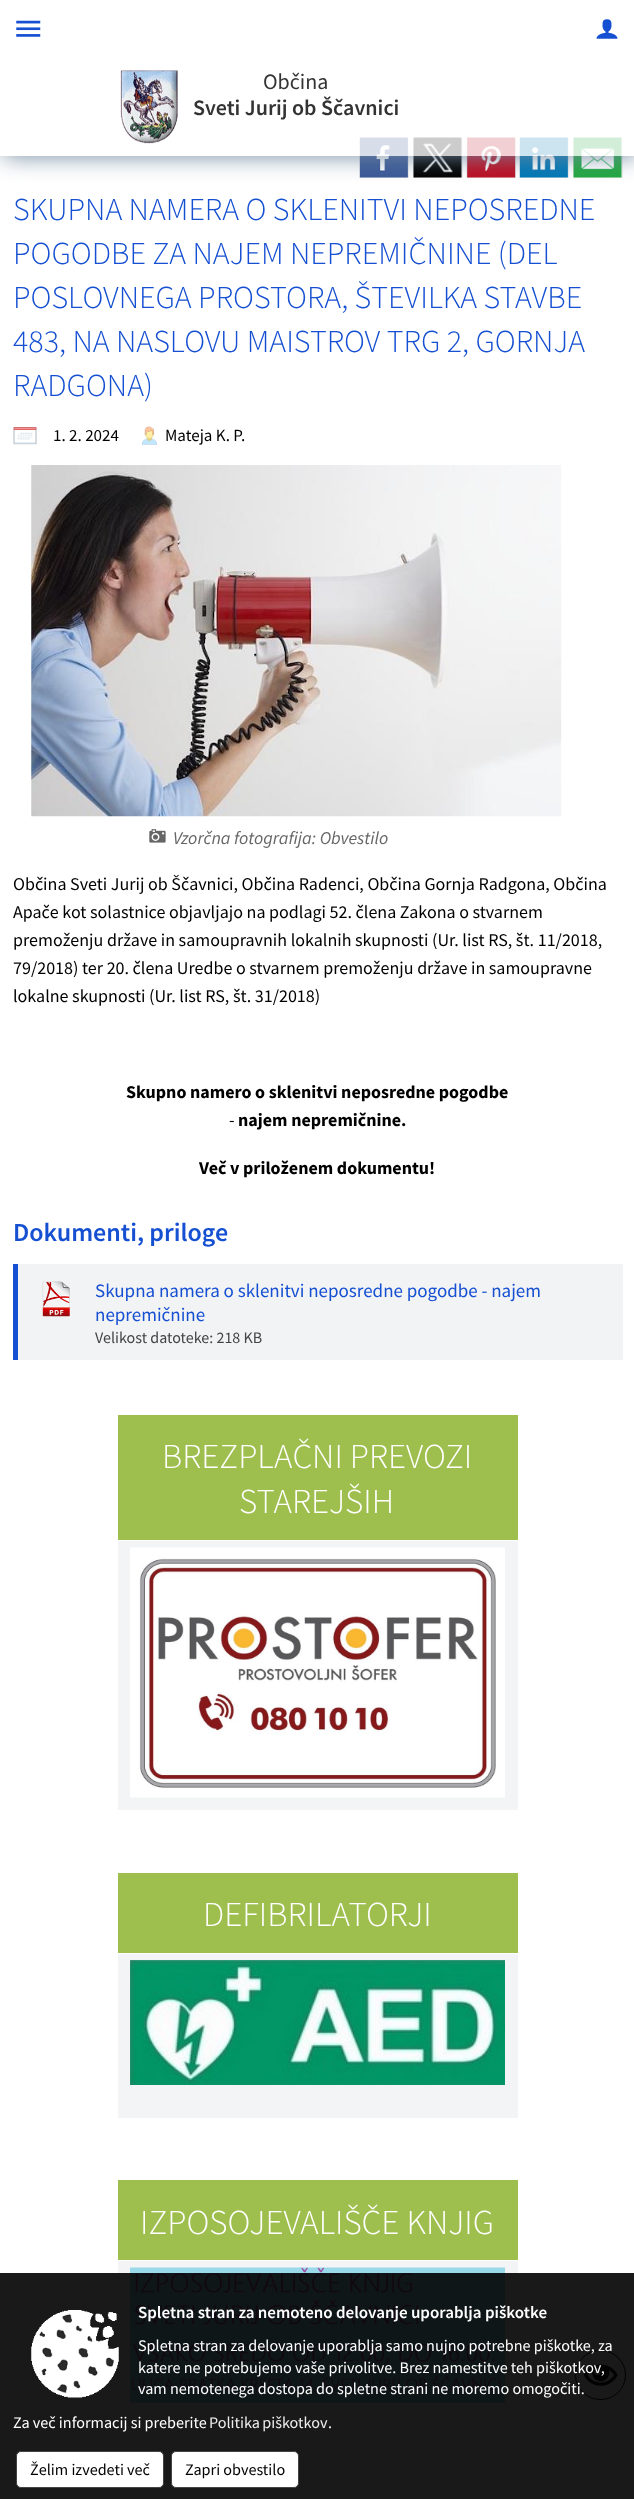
<!DOCTYPE html>
<meta charset="utf-8">
<style>body { margin: 0 } canvas { display: block }</style>
<canvas id="canvas" width="634" height="2499"></canvas>
<img id="img1" src="img_04.png" hidden>
<img id="img2" src="img_05.png" hidden>
<img id="img3" src="img_06.png" hidden>
<img id="img4" src="img_07.png" hidden>
<img id="img5" src="img_08.png" hidden>
<img id="img6" src="img_01.png" hidden>
<img id="img7" src="img_02.png" hidden>
<img id="img8" src="img_03.png" hidden>
<img id="img9" src="img_09.png" hidden>
<img id="img10" src="img_10.png" hidden>
<img id="img11" src="img_11.png" hidden>
<img id="img12" src="img_12.png" hidden>
<img id="img13" src="img_13.png" hidden>
<img id="img14" src="img_14.png" hidden>
<img id="img15" src="img_15.png" hidden>
<img id="img16" src="img_16.png" hidden>
<img id="img17" src="img_17.png" hidden>
<img id="img18" src="img_18.png" hidden>
<script>
window.onload = function () {
	const canvas = document.getElementById("canvas");
	const ctx = canvas.getContext("2d");
	ctx.miterLimit = 4;
	ctx.fontKerning = "normal";
	function txt(s, x, y) {
		ctx.fillText(s, x, y);
	}
	function fill(x, y, w, h) {
		ctx.fillRect(x, y, w, h);
	}
	function img(id, x, y, w, h) {
		ctx.drawImage(document.getElementById(id), x, y, w, h);
	}

	ctx.fillStyle = "#FFFFFF";
	fill(0, 0, 634, 2499);
	ctx.fillStyle = "#191919";
	fill(0, 2273, 634, 226);
	ctx.fillStyle = "#EFEFEF";
	fill(359, 138, 50, 40);
	img("img1", 359, 137, 49, 41);
	fill(413, 138, 50, 40);
	img("img2", 413, 137, 49, 41);
	fill(466, 138, 50, 40);
	img("img3", 467, 137, 49, 41);
	fill(519, 138, 50, 40);
	img("img4", 519, 137, 49, 41);
	fill(573, 138, 50, 40);
	img("img5", 573, 137, 49, 41);
	ctx.save();
	ctx.beginPath();
	ctx.rect(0, 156, 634, 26);
	ctx.clip();
	ctx.fillStyle = "#71899F";
	ctx.filter = "blur(12.5px)";
	ctx.beginPath();
	ctx.rect(3, 0, 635, 156);
	ctx.fill();
	ctx.filter = "none";
	ctx.restore();
	img("img6", 16, 20, 25, 17);
	img("img7", 596, 19, 22, 20);
	ctx.fillStyle = "rgba(255, 255, 255, 0.8)";
	fill(359, 137, 264, 19);
	img("img8", 120, 70, 58, 74);
	img("img9", 13, 427, 24, 18);
	img("img10", 141, 426, 16, 19);
	img("img11", 31, 465, 531, 352);
	img("img12", 149, 829, 17, 14);
	ctx.fillStyle = "#F2F3F5";
	fill(18, 1264, 605, 96);
	ctx.fillStyle = "#154FD2";
	fill(13, 1264, 5, 96);
	img("img13", 42, 1281, 28, 36);
	ctx.fillStyle = "#9EBF4E";
	fill(118, 1415, 400, 125);
	ctx.fillStyle = "#F3F4F5";
	fill(118, 1541, 400, 269);
	img("img14", 130, 1547, 375, 251);
	ctx.fillStyle = "#9EBF4E";
	fill(118, 1873, 400, 80);
	ctx.fillStyle = "#F3F4F5";
	fill(118, 1954, 400, 164);
	img("img15", 130, 1960, 375, 125);
	ctx.fillStyle = "#9EBF4E";
	fill(118, 2180, 400, 80);
	ctx.fillStyle = "#F3F4F5";
	fill(118, 2261, 400, 12);
	img("img16", 130, 2267, 375, 136);
	img("img17", 31, 2310, 88, 88);
	ctx.fillStyle = "#FFFFFF";
	ctx.beginPath();
	ctx.roundRect(16.5, 2451.5, 147, 36, 4.5);
	ctx.fill();
	ctx.strokeStyle = "#444444";
	ctx.stroke();
	ctx.beginPath();
	ctx.roundRect(171.5, 2451.5, 127, 36, 4.5);
	ctx.fill();
	ctx.stroke();
	ctx.beginPath();
	ctx.roundRect(575.5, 2350.5, 50, 49, 24.5);
	ctx.strokeStyle = "#020202";
	ctx.stroke();
	img("img18", 583, 2364, 35, 22);
	ctx.font = "22px Source Sans Pro";
	ctx.fillStyle = "#333333";
	txt("Občina", 263, 89);
	ctx.font = "600 22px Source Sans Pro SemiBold";
	txt("Sveti Jurij ob Ščavnici", 193, 115);
	ctx.font = "300 32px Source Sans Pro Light";
	ctx.fillStyle = "#154FD2";
	txt("SKUPNA NAMERA O SKLENITVI NEPOSREDNE", 13, 220);
	txt("POGODBE ZA NAJEM NEPREMIČNINE (DEL", 13, 264);
	txt("POSLOVNEGA PROSTORA, ŠTEVILKA STAVBE", 13, 308);
	txt("483, NA NASLOVU MAISTROV TRG 2, GORNJA", 13, 352);
	txt("RADGONA)", 13, 396);
	ctx.font = "17px Source Sans Pro";
	ctx.fillStyle = "#000000";
	txt("1. 2. 2024", 53, 441);
	txt("Mateja K. P.", 165, 441);
	ctx.font = "italic 18px Source Sans Pro";
	ctx.fillStyle = "#666666";
	txt("Vzorčna fotografija: Obvestilo", 173, 844);
	ctx.font = "18px Source Sans Pro";
	ctx.fillStyle = "#000000";
	txt("Občina Sveti Jurij ob Ščavnici, Občina Radenci, Občina Gornja Radgona, Občina", 13, 890);
	txt("Apače kot solastnice objavljajo na podlagi 52. člena Zakona o stvarnem", 13, 918);
	txt("premoženju države in samoupravnih lokalnih skupnosti (Ur. list RS, št. 11/2018,", 13, 946);
	txt("79/2018) ter 20. člena Uredbe o stvarnem premoženju države in samoupravne", 13, 974);
	txt("lokalne skupnosti (Ur. list RS, št. 31/2018)", 13, 1002);
	ctx.font = "bold 18px Source Sans Pro";
	txt("Skupno namero o sklenitvi neposredne pogodbe", 126, 1098);
	ctx.font = "18px Source Sans Pro";
	txt("-", 229, 1126);
	ctx.font = "bold 18px Source Sans Pro";
	txt("najem nepremičnine.", 238, 1126);
	txt("Več v priloženem dokumentu!", 199, 1174);
	ctx.font = "600 26px Source Sans Pro SemiBold";
	ctx.fillStyle = "#154FD2";
	txt("Dokumenti, priloge", 13, 1241);
	ctx.font = "19px Source Sans Pro";
	txt("Skupna namera o sklenitvi neposredne pogodbe - najem", 95, 1297);
	txt("nepremičnine", 95, 1321);
	ctx.font = "16px Source Sans Pro";
	ctx.fillStyle = "#444444";
	txt("Velikost datoteke: 218 KB", 95, 1343);
	ctx.font = "300 35px Source Sans Pro Light";
	ctx.fillStyle = "#FFFFFF";
	txt("BREZPLAČNI PREVOZI", 162, 1468);
	txt("STAREJŠIH", 239, 1513);
	txt("DEFIBRILATORJI", 203, 1926);
	txt("IZPOSOJEVALIŠČE KNJIG", 140, 2234);
	ctx.font = "600 17px Source Sans Pro SemiBold";
	txt("Spletna stran za nemoteno delovanje uporablja piškotke", 138, 2318);
	ctx.font = "16.15px Source Sans Pro";
	txt("Spletna stran za delovanje uporablja samo nujno potrebne piškotke, za", 138, 2351);
	txt("katere ne potrebujemo vaše privolitve. Brez namestitve teh piškotkov,", 138, 2373);
	txt("vam nemotenega dostopa do spletne strani ne moremo omogočiti.", 138, 2394);
	txt("Za več informacij si preberite", 13, 2428);
	ctx.wordSpacing = "-1px";
	ctx.fillStyle = "#EEEEEE";
	txt("Politika piškotkov", 209, 2428);
	ctx.wordSpacing = "0px";
	ctx.fillStyle = "#FFFFFF";
	txt(".", 328, 2428);
	ctx.fillStyle = "#000000";
	txt("Želim izvedeti več", 30, 2475);
	txt("Zapri obvestilo", 185, 2475);
};
</script>
